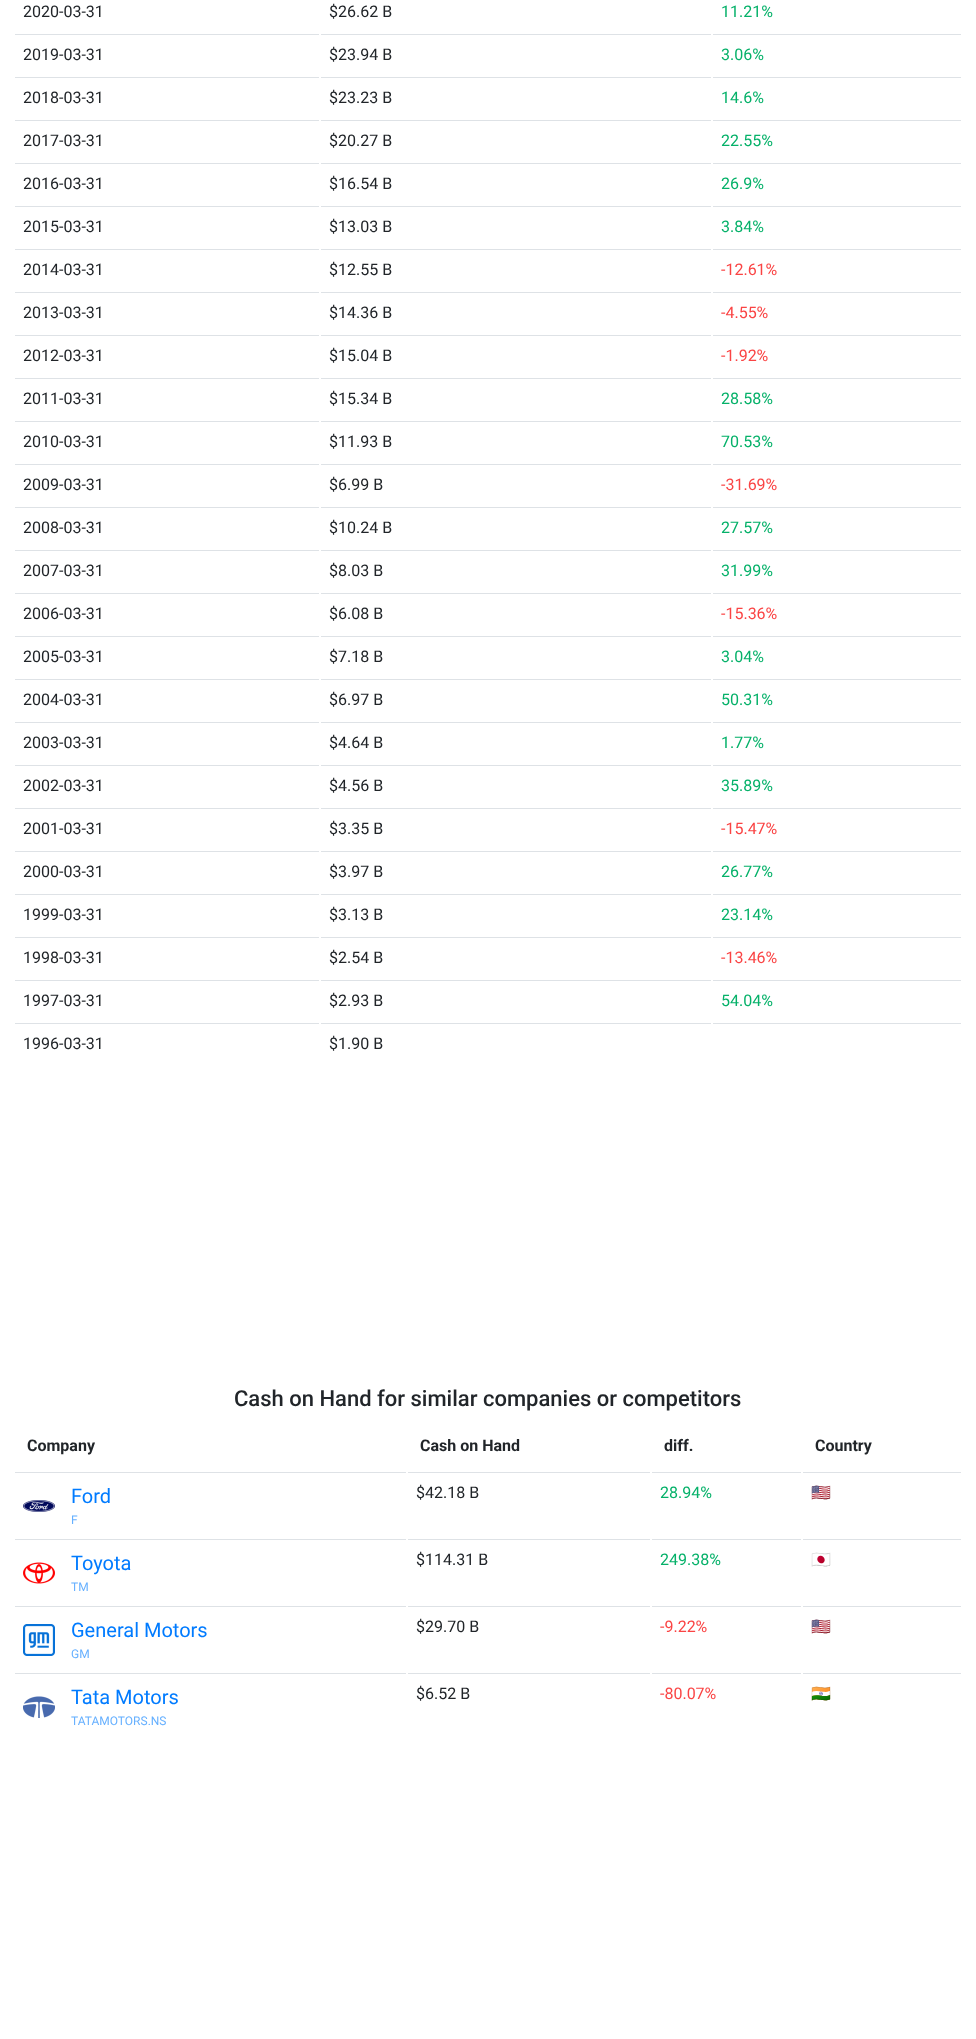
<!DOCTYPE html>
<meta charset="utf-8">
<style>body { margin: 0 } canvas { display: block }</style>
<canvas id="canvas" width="976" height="2039"></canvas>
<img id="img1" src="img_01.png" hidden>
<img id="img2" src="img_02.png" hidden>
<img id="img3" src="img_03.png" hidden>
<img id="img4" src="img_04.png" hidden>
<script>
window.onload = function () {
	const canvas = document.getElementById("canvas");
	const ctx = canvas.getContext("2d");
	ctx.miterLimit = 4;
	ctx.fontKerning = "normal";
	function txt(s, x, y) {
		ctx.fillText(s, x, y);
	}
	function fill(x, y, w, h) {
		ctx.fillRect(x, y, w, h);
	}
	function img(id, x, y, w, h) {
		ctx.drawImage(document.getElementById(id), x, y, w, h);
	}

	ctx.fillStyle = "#FFFFFF";
	fill(0, 0, 976, 2039);
	ctx.fillStyle = "#DEE2E6";
	fill(15, 34, 304, 1);
	fill(321, 34, 390, 1);
	fill(713, 34, 248, 1);
	fill(15, 77, 304, 1);
	fill(321, 77, 390, 1);
	fill(713, 77, 248, 1);
	fill(15, 120, 304, 1);
	fill(321, 120, 390, 1);
	fill(713, 120, 248, 1);
	fill(15, 163, 304, 1);
	fill(321, 163, 390, 1);
	fill(713, 163, 248, 1);
	fill(15, 206, 304, 1);
	fill(321, 206, 390, 1);
	fill(713, 206, 248, 1);
	fill(15, 249, 304, 1);
	fill(321, 249, 390, 1);
	fill(713, 249, 248, 1);
	fill(15, 292, 304, 1);
	fill(321, 292, 390, 1);
	fill(713, 292, 248, 1);
	fill(15, 335, 304, 1);
	fill(321, 335, 390, 1);
	fill(713, 335, 248, 1);
	fill(15, 378, 304, 1);
	fill(321, 378, 390, 1);
	fill(713, 378, 248, 1);
	fill(15, 421, 304, 1);
	fill(321, 421, 390, 1);
	fill(713, 421, 248, 1);
	fill(15, 464, 304, 1);
	fill(321, 464, 390, 1);
	fill(713, 464, 248, 1);
	fill(15, 507, 304, 1);
	fill(321, 507, 390, 1);
	fill(713, 507, 248, 1);
	fill(15, 550, 304, 1);
	fill(321, 550, 390, 1);
	fill(713, 550, 248, 1);
	fill(15, 593, 304, 1);
	fill(321, 593, 390, 1);
	fill(713, 593, 248, 1);
	fill(15, 636, 304, 1);
	fill(321, 636, 390, 1);
	fill(713, 636, 248, 1);
	fill(15, 679, 304, 1);
	fill(321, 679, 390, 1);
	fill(713, 679, 248, 1);
	fill(15, 722, 304, 1);
	fill(321, 722, 390, 1);
	fill(713, 722, 248, 1);
	fill(15, 765, 304, 1);
	fill(321, 765, 390, 1);
	fill(713, 765, 248, 1);
	fill(15, 808, 304, 1);
	fill(321, 808, 390, 1);
	fill(713, 808, 248, 1);
	fill(15, 851, 304, 1);
	fill(321, 851, 390, 1);
	fill(713, 851, 248, 1);
	fill(15, 894, 304, 1);
	fill(321, 894, 390, 1);
	fill(713, 894, 248, 1);
	fill(15, 937, 304, 1);
	fill(321, 937, 390, 1);
	fill(713, 937, 248, 1);
	fill(15, 980, 304, 1);
	fill(321, 980, 390, 1);
	fill(713, 980, 248, 1);
	fill(713, 1023, 248, 1);
	fill(15, 1023, 304, 1);
	fill(321, 1023, 390, 1);
	fill(15, 1472, 391, 1);
	img("img1", 23, 1500, 32, 12);
	fill(408, 1472, 242, 1);
	fill(652, 1472, 149, 1);
	fill(803, 1472, 158, 1);
	fill(15, 1539, 391, 1);
	img("img2", 23, 1562, 32, 22);
	fill(408, 1539, 242, 1);
	fill(652, 1539, 149, 1);
	fill(803, 1539, 158, 1);
	fill(15, 1606, 391, 1);
	img("img3", 23, 1624, 32, 32);
	fill(408, 1606, 242, 1);
	fill(652, 1606, 149, 1);
	fill(803, 1606, 158, 1);
	fill(15, 1673, 391, 1);
	img("img4", 23, 1696, 32, 22);
	fill(408, 1673, 242, 1);
	fill(652, 1673, 149, 1);
	fill(803, 1673, 158, 1);
	ctx.font = "16px Roboto";
	ctx.fillStyle = "#212529";
	txt("2020-03-31", 23, 17);
	txt("$26.62 B", 329, 17);
	ctx.fillStyle = "#05B169";
	txt("11.21%", 721, 17);
	ctx.fillStyle = "#212529";
	txt("2019-03-31", 23, 60);
	txt("$23.94 B", 329, 60);
	ctx.fillStyle = "#05B169";
	txt("3.06%", 721, 60);
	ctx.fillStyle = "#212529";
	txt("2018-03-31", 23, 103);
	txt("$23.23 B", 329, 103);
	ctx.fillStyle = "#05B169";
	txt("14.6%", 721, 103);
	ctx.fillStyle = "#212529";
	txt("2017-03-31", 23, 146);
	txt("$20.27 B", 329, 146);
	ctx.fillStyle = "#05B169";
	txt("22.55%", 721, 146);
	ctx.fillStyle = "#212529";
	txt("2016-03-31", 23, 189);
	txt("$16.54 B", 329, 189);
	ctx.fillStyle = "#05B169";
	txt("26.9%", 721, 189);
	ctx.fillStyle = "#212529";
	txt("2015-03-31", 23, 232);
	txt("$13.03 B", 329, 232);
	ctx.fillStyle = "#05B169";
	txt("3.84%", 721, 232);
	ctx.fillStyle = "#212529";
	txt("2014-03-31", 23, 275);
	txt("$12.55 B", 329, 275);
	ctx.fillStyle = "#FA4444";
	txt("-12.61%", 721, 275);
	ctx.fillStyle = "#212529";
	txt("2013-03-31", 23, 318);
	txt("$14.36 B", 329, 318);
	ctx.fillStyle = "#FA4444";
	txt("-4.55%", 721, 318);
	ctx.fillStyle = "#212529";
	txt("2012-03-31", 23, 361);
	txt("$15.04 B", 329, 361);
	ctx.fillStyle = "#FA4444";
	txt("-1.92%", 721, 361);
	ctx.fillStyle = "#212529";
	txt("2011-03-31", 23, 404);
	txt("$15.34 B", 329, 404);
	ctx.fillStyle = "#05B169";
	txt("28.58%", 721, 404);
	ctx.fillStyle = "#212529";
	txt("2010-03-31", 23, 447);
	txt("$11.93 B", 329, 447);
	ctx.fillStyle = "#05B169";
	txt("70.53%", 721, 447);
	ctx.fillStyle = "#212529";
	txt("2009-03-31", 23, 490);
	txt("$6.99 B", 329, 490);
	ctx.fillStyle = "#FA4444";
	txt("-31.69%", 721, 490);
	ctx.fillStyle = "#212529";
	txt("2008-03-31", 23, 533);
	txt("$10.24 B", 329, 533);
	ctx.fillStyle = "#05B169";
	txt("27.57%", 721, 533);
	ctx.fillStyle = "#212529";
	txt("2007-03-31", 23, 576);
	txt("$8.03 B", 329, 576);
	ctx.fillStyle = "#05B169";
	txt("31.99%", 721, 576);
	ctx.fillStyle = "#212529";
	txt("2006-03-31", 23, 619);
	txt("$6.08 B", 329, 619);
	ctx.fillStyle = "#FA4444";
	txt("-15.36%", 721, 619);
	ctx.fillStyle = "#212529";
	txt("2005-03-31", 23, 662);
	txt("$7.18 B", 329, 662);
	ctx.fillStyle = "#05B169";
	txt("3.04%", 721, 662);
	ctx.fillStyle = "#212529";
	txt("2004-03-31", 23, 705);
	txt("$6.97 B", 329, 705);
	ctx.fillStyle = "#05B169";
	txt("50.31%", 721, 705);
	ctx.fillStyle = "#212529";
	txt("2003-03-31", 23, 748);
	txt("$4.64 B", 329, 748);
	ctx.fillStyle = "#05B169";
	txt("1.77%", 721, 748);
	ctx.fillStyle = "#212529";
	txt("2002-03-31", 23, 791);
	txt("$4.56 B", 329, 791);
	ctx.fillStyle = "#05B169";
	txt("35.89%", 721, 791);
	ctx.fillStyle = "#212529";
	txt("2001-03-31", 23, 834);
	txt("$3.35 B", 329, 834);
	ctx.fillStyle = "#FA4444";
	txt("-15.47%", 721, 834);
	ctx.fillStyle = "#212529";
	txt("2000-03-31", 23, 877);
	txt("$3.97 B", 329, 877);
	ctx.fillStyle = "#05B169";
	txt("26.77%", 721, 877);
	ctx.fillStyle = "#212529";
	txt("1999-03-31", 23, 920);
	txt("$3.13 B", 329, 920);
	ctx.fillStyle = "#05B169";
	txt("23.14%", 721, 920);
	ctx.fillStyle = "#212529";
	txt("1998-03-31", 23, 963);
	txt("$2.54 B", 329, 963);
	ctx.fillStyle = "#FA4444";
	txt("-13.46%", 721, 963);
	ctx.fillStyle = "#212529";
	txt("1997-03-31", 23, 1006);
	txt("$2.93 B", 329, 1006);
	ctx.fillStyle = "#05B169";
	txt("54.04%", 721, 1006);
	ctx.fillStyle = "#212529";
	txt("1996-03-31", 23, 1049);
	txt("$1.90 B", 329, 1049);
	ctx.font = "500 22px Roboto";
	txt("Cash on Hand for similar companies or competitors", 234, 1406);
	ctx.font = "bold 16px Roboto";
	txt("Company", 27, 1451);
	txt("Cash on Hand", 420, 1451);
	txt("diff.", 664, 1451);
	txt("Country", 815, 1451);
	ctx.font = "20px Roboto";
	ctx.fillStyle = "#007BFF";
	txt("Ford", 71, 1503);
	ctx.font = "12px Roboto";
	ctx.fillStyle = "#66B0FF";
	txt("F", 71, 1524);
	ctx.font = "16px Roboto";
	ctx.fillStyle = "#212529";
	txt("$42.18 B", 416, 1498);
	ctx.fillStyle = "#05B169";
	txt("28.94%", 660, 1498);
	ctx.font = "16px Noto Color Emoji";
	ctx.fillStyle = "#212529";
	txt("🇺🇸", 811, 1498);
	ctx.font = "20px Roboto";
	ctx.fillStyle = "#007BFF";
	txt("Toyota", 71, 1570);
	ctx.font = "12px Roboto";
	ctx.fillStyle = "#66B0FF";
	txt("TM", 71, 1591);
	ctx.font = "16px Roboto";
	ctx.fillStyle = "#212529";
	txt("$114.31 B", 416, 1565);
	ctx.fillStyle = "#05B169";
	txt("249.38%", 660, 1565);
	ctx.font = "16px Noto Color Emoji";
	ctx.fillStyle = "#212529";
	txt("🇯🇵", 811, 1565);
	ctx.font = "20px Roboto";
	ctx.fillStyle = "#007BFF";
	txt("General Motors", 71, 1637);
	ctx.font = "12px Roboto";
	ctx.fillStyle = "#66B0FF";
	txt("GM", 71, 1658);
	ctx.font = "16px Roboto";
	ctx.fillStyle = "#212529";
	txt("$29.70 B", 416, 1632);
	ctx.fillStyle = "#FA4444";
	txt("-9.22%", 660, 1632);
	ctx.font = "16px Noto Color Emoji";
	ctx.fillStyle = "#212529";
	txt("🇺🇸", 811, 1632);
	ctx.font = "20px Roboto";
	ctx.fillStyle = "#007BFF";
	txt("Tata Motors", 71, 1704);
	ctx.font = "12px Roboto";
	ctx.fillStyle = "#66B0FF";
	txt("TATAMOTORS.NS", 71, 1725);
	ctx.font = "16px Roboto";
	ctx.fillStyle = "#212529";
	txt("$6.52 B", 416, 1699);
	ctx.fillStyle = "#FA4444";
	txt("-80.07%", 660, 1699);
	ctx.font = "16px Noto Color Emoji";
	ctx.fillStyle = "#212529";
	txt("🇮🇳", 811, 1699);
};
</script>
